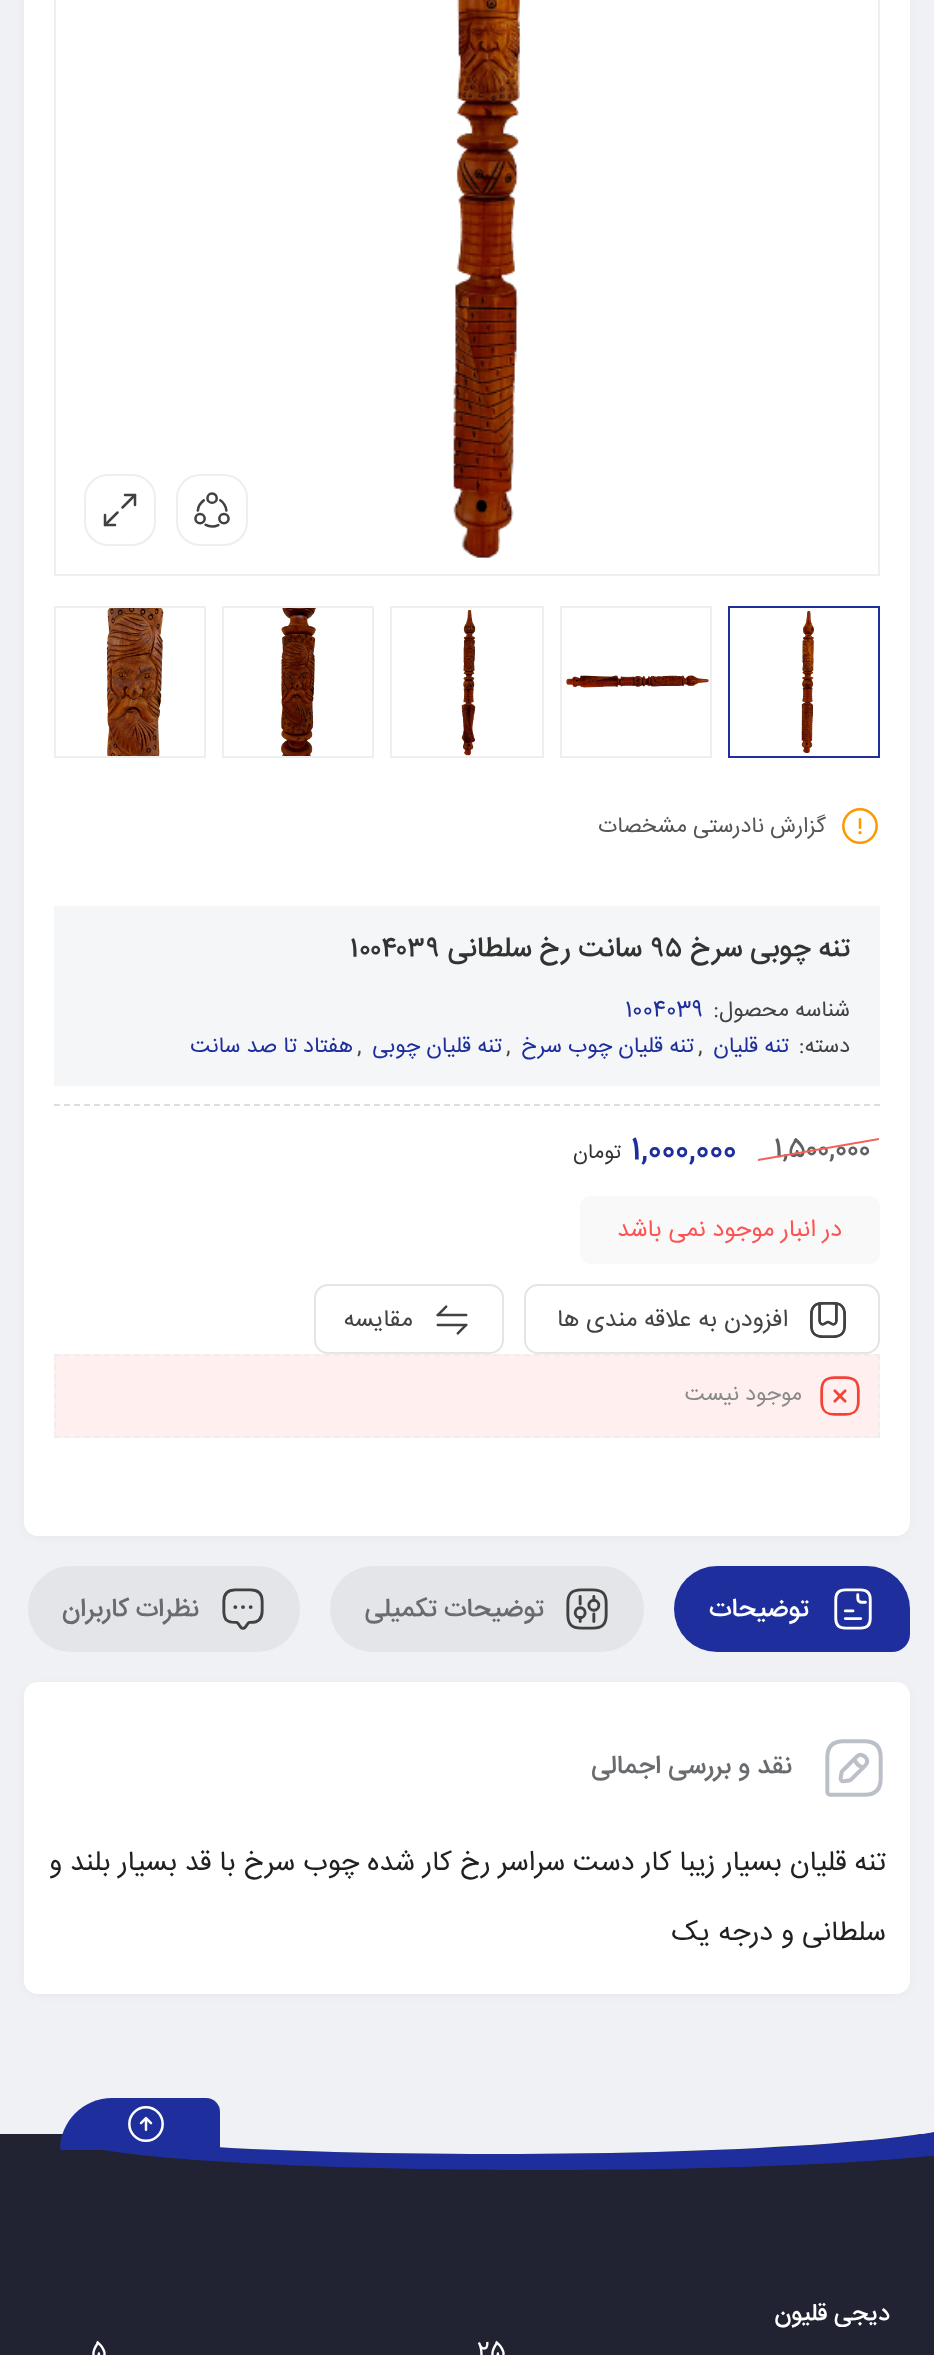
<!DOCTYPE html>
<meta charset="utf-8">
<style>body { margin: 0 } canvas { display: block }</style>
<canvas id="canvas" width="934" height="2355"></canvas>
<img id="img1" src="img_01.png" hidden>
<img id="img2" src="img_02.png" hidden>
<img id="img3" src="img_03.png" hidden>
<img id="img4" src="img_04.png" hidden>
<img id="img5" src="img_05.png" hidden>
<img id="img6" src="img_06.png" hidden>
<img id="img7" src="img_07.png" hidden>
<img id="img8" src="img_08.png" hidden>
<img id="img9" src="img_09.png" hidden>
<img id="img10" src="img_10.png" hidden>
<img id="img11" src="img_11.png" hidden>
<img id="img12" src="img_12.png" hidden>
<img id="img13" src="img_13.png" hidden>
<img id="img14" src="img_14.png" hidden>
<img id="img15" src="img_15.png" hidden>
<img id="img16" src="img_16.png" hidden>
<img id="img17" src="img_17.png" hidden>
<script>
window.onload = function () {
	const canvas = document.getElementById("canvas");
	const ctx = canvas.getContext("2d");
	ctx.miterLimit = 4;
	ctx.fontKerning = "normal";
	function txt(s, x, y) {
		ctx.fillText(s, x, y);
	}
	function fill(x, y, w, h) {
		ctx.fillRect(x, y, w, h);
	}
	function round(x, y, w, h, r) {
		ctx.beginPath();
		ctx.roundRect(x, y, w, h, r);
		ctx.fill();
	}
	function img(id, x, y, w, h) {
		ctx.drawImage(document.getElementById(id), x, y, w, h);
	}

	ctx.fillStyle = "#EFF1F5";
	fill(0, 0, 934, 2355);
	ctx.fillStyle = "rgba(0, 0, 0, 0.1)";
	ctx.filter = "blur(7px)";
	ctx.beginPath();
	ctx.roundRect(30, -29, 874, 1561, 8);
	ctx.fill();
	ctx.filter = "none";
	ctx.fillStyle = "#FFFFFF";
	round(24, -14, 886, 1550, 14);
	ctx.strokeStyle = "#EEEEEE";
	ctx.lineWidth = 2;
	ctx.strokeRect(55, -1, 824, 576);
	img("img1", 453, 0, 69, 559);
	ctx.beginPath();
	ctx.roundRect(177, 475, 70, 70, 23);
	ctx.stroke();
	img("img2", 194, 492, 36, 36);
	ctx.beginPath();
	ctx.roundRect(85, 475, 70, 70, 23);
	ctx.stroke();
	img("img3", 103, 493, 34, 34);
	ctx.strokeStyle = "#1E2F9D";
	ctx.strokeRect(729, 607, 150, 150);
	img("img4", 801, 611, 13, 142);
	ctx.strokeStyle = "#EEEEEE";
	ctx.strokeRect(561, 607, 150, 150);
	img("img5", 566, 675, 143, 13);
	ctx.strokeRect(391, 607, 152, 150);
	img("img6", 461, 610, 15, 146);
	ctx.strokeRect(223, 607, 150, 150);
	img("img7", 281, 608, 35, 148);
	ctx.strokeRect(55, 607, 150, 150);
	img("img8", 106, 608, 58, 148);
	img("img9", 842, 808, 36, 36);
	ctx.fillStyle = "#F5F6F7";
	fill(54, 906, 826, 180);
	ctx.beginPath();
	ctx.moveTo(54, 1105);
	ctx.lineTo(880, 1105);
	ctx.strokeStyle = "#DDDDDD";
	ctx.setLineDash([6, 4]);
	ctx.stroke();
	ctx.fillStyle = "#F9F9F9";
	round(580, 1196, 300, 68, 10);
	ctx.beginPath();
	ctx.roundRect(525, 1285, 354, 68, 13);
	ctx.strokeStyle = "#E5E5E5";
	ctx.setLineDash([]);
	ctx.stroke();
	img("img10", 810, 1302, 36, 36);
	ctx.beginPath();
	ctx.roundRect(315, 1285, 188, 68, 13);
	ctx.stroke();
	img("img11", 436, 1305, 32, 30);
	ctx.fillStyle = "#FFEFEF";
	fill(54, 1354, 826, 84);
	ctx.beginPath();
	ctx.moveTo(54, 1355);
	ctx.lineTo(880, 1355);
	ctx.strokeStyle = "#EEEEEE";
	ctx.setLineDash([6, 4]);
	ctx.stroke();
	ctx.beginPath();
	ctx.moveTo(879, 1354);
	ctx.lineTo(879, 1438);
	ctx.setLineDash([6, 3.76]);
	ctx.stroke();
	ctx.beginPath();
	ctx.moveTo(54, 1437);
	ctx.lineTo(880, 1437);
	ctx.setLineDash([6, 4]);
	ctx.stroke();
	ctx.beginPath();
	ctx.moveTo(55, 1354);
	ctx.lineTo(55, 1438);
	ctx.setLineDash([6, 3.76]);
	ctx.stroke();
	img("img12", 820, 1376, 40, 40);
	ctx.fillStyle = "#1E2F9D";
	ctx.beginPath();
	ctx.roundRect(674, 1566, 236, 86, [43, 43, 18, 43]);
	ctx.fill();
	img("img13", 834, 1588, 38, 42);
	ctx.fillStyle = "#E3E5E9";
	round(330, 1566, 314, 86, 43);
	img("img14", 566, 1588, 42, 42);
	round(28, 1566, 272, 86, 43);
	img("img15", 222, 1588, 42, 42);
	ctx.fillStyle = "rgba(0, 0, 0, 0.1)";
	ctx.filter = "blur(7px)";
	ctx.beginPath();
	ctx.roundRect(30, 1690, 874, 300, 8);
	ctx.fill();
	ctx.filter = "none";
	ctx.fillStyle = "#FFFFFF";
	round(24, 1682, 886, 312, 14);
	img("img16", 825, 1739, 58, 58);
	ctx.fillStyle = "#222332";
	fill(0, 2134, 934, 221);
	ctx.fillStyle = "#1E2F9D";
	ctx.beginPath();
	ctx.moveTo(73, 2135);
	ctx.bezierCurveTo(71, 2136, 70, 2137, 70, 2138);
	ctx.bezierCurveTo(70, 2156, 281, 2170, 541, 2170);
	ctx.bezierCurveTo(801, 2170, 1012, 2156, 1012, 2138);
	ctx.bezierCurveTo(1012, 2133, 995, 2128, 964, 2124);
	ctx.bezierCurveTo(927, 2141, 731, 2154, 495, 2154);
	ctx.bezierCurveTo(311, 2154, 152, 2146, 73, 2135);
	ctx.closePath();
	ctx.fill();
	ctx.fillStyle = "#EFF1F5";
	ctx.beginPath();
	ctx.ellipse(495, 2118, 475, 36, 0, 0, Math.PI * 2);
	ctx.fill();
	ctx.fillStyle = "#1E2F9D";
	ctx.beginPath();
	ctx.roundRect(60, 2098, 160, 52, [52, 14, 0, 0]);
	ctx.fill();
	img("img17", 128, 2106, 36, 36);
	ctx.direction = "rtl";
	ctx.font = "22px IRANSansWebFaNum";
	ctx.fillStyle = "#555555";
	txt("گزارش نادرستی مشخصات", 826, 832);
	ctx.font = "500 28px IRANSansWebFaNum";
	ctx.fillStyle = "#333333";
	txt("تنه چوبی سرخ", 850, 956);
	ctx.direction = "ltr";
	txt("۹۵", 650, 956);
	ctx.direction = "rtl";
	txt("سانت رخ سلطانی", 642, 956);
	ctx.direction = "ltr";
	txt("۱۰۰۴۰۳۹", 350, 956);
	ctx.direction = "rtl";
	ctx.font = "22px IRANSansWebFaNum";
	ctx.fillStyle = "#434343";
	txt("شناسه محصول:", 850, 1016);
	ctx.direction = "ltr";
	ctx.fillStyle = "#1E2F9D";
	txt("1004039", 625, 1016);
	ctx.direction = "rtl";
	ctx.fillStyle = "#434343";
	txt("دسته:", 850, 1052);
	ctx.fillStyle = "#1E2F9D";
	txt("تنه قلیان", 789, 1052);
	ctx.direction = "ltr";
	ctx.fillStyle = "#434343";
	txt(",", 698, 1052);
	ctx.direction = "rtl";
	ctx.fillStyle = "#1E2F9D";
	txt("تنه قلیان چوب سرخ", 694, 1052);
	ctx.direction = "ltr";
	ctx.fillStyle = "#434343";
	txt(",", 506, 1052);
	ctx.direction = "rtl";
	ctx.fillStyle = "#1E2F9D";
	txt("تنه قلیان چوبی", 502, 1052);
	ctx.direction = "ltr";
	ctx.fillStyle = "#434343";
	txt(",", 357, 1052);
	ctx.direction = "rtl";
	ctx.fillStyle = "#1E2F9D";
	txt("هفتاد تا صد سانت", 353, 1052);
	ctx.letterSpacing = "-0.25px";
	ctx.direction = "ltr";
	ctx.font = "500 26px IRANSansWebFaNum";
	ctx.fillStyle = "#606060";
	txt("1,500,000", 774, 1156);
	ctx.fillStyle = "#F65F54";
	ctx.beginPath();
	ctx.moveTo(758, 1159);
	ctx.lineTo(879, 1138);
	ctx.lineTo(879, 1140);
	ctx.lineTo(758, 1161);
	ctx.closePath();
	ctx.fill();
	ctx.font = "500 30px IRANSansWebFaNum";
	ctx.fillStyle = "#1E2F9D";
	txt("1,000,000", 631, 1158);
	ctx.direction = "rtl";
	ctx.font = "21px IRANSansWebFaNum";
	ctx.fillStyle = "#333333";
	txt("تومان", 621, 1158);
	ctx.letterSpacing = "0px";
	ctx.font = "24px IRANSansWebFaNum";
	ctx.fillStyle = "#FF5252";
	txt("در انبار موجود نمی باشد", 842, 1236);
	ctx.fillStyle = "#434343";
	txt("افزودن به علاقه مندی ها", 788, 1326);
	txt("مقایسه", 413, 1326);
	ctx.font = "22px IRANSansWebFaNum";
	ctx.fillStyle = "#898A8B";
	txt("موجود نیست", 802, 1400);
	ctx.font = "500 26px IRANSansWebFaNum";
	ctx.fillStyle = "#FFFFFF";
	txt("توضیحات", 809, 1616);
	ctx.fillStyle = "#686C6F";
	txt("توضیحات تکمیلی", 544, 1616);
	txt("نظرات کاربران", 199, 1616);
	txt("نقد و بررسی اجمالی", 792, 1773);
	ctx.font = "28px IRANSansWebFaNum";
	ctx.fillStyle = "#1F2021";
	txt("تنه قلیان بسیار زیبا کار دست سراسر رخ کار شده چوب سرخ با قد بسیار بلند و", 886, 1870);
	txt("سلطانی و درجه یک", 886, 1940);
	ctx.font = "500 24px IRANSansWebFaNum";
	ctx.fillStyle = "#FFFFFF";
	txt("دیجی قلیون", 890, 2320);
	ctx.direction = "ltr";
	ctx.font = "24px IRANSansWebFaNum";
	txt("25", 477, 2358);
	txt("5", 91, 2358);
};
</script>
